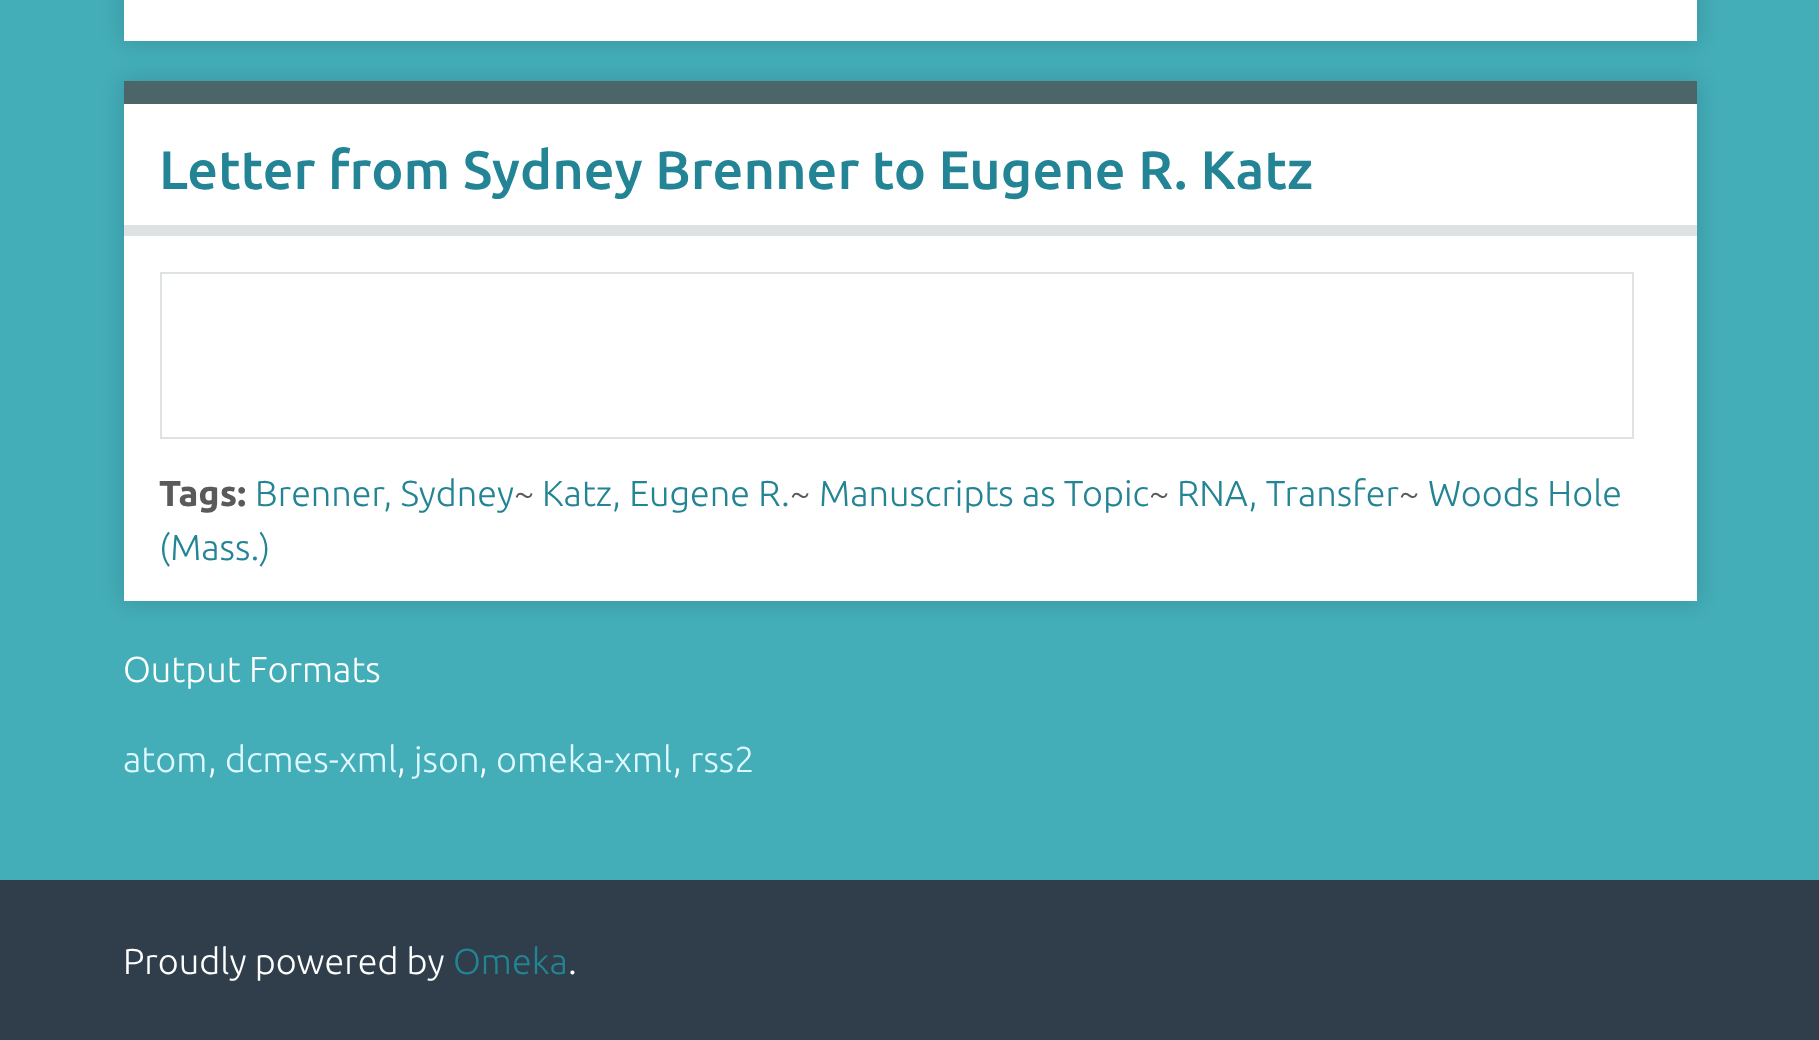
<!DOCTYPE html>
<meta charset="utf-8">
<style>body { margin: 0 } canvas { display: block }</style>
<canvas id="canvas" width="1819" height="1040"></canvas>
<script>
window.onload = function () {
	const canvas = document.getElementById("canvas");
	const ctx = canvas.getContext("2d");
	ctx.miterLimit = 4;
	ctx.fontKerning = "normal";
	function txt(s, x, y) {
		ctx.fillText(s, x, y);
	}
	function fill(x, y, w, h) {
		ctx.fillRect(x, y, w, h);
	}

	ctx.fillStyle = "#2F3E4A";
	fill(0, 0, 1819, 1040);
	ctx.fillStyle = "#43ADB8";
	fill(0, 0, 1819, 880);
	ctx.fillStyle = "rgba(0, 0, 0, 0.15)";
	ctx.filter = "blur(11px)";
	ctx.beginPath();
	ctx.rect(124, -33, 1573, 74);
	ctx.fill();
	ctx.filter = "none";
	ctx.fillStyle = "#FFFFFF";
	fill(124, 0, 1573, 41);
	ctx.fillStyle = "rgba(0, 0, 0, 0.15)";
	ctx.filter = "blur(11px)";
	ctx.beginPath();
	ctx.rect(124, 81, 1573, 520);
	ctx.fill();
	ctx.filter = "none";
	ctx.fillStyle = "#FFFFFF";
	fill(124, 104, 1573, 497);
	ctx.fillStyle = "#4B6569";
	fill(124, 81, 1573, 23);
	ctx.fillStyle = "#DFE2E2";
	fill(124, 225, 1573, 11);
	ctx.strokeStyle = "#DFE2E2";
	ctx.lineWidth = 2;
	ctx.strokeRect(161, 273, 1472, 165);
	ctx.font = "500 54px Ubuntu";
	ctx.fillStyle = "#228494";
	txt("Letter from Sydney Brenner to Eugene R. Katz", 159, 189);
	ctx.font = "bold 36px Ubuntu";
	ctx.fillStyle = "#5A5A5A";
	txt("Tags:", 159, 506);
	ctx.font = "300 36px Ubuntu";
	ctx.fillStyle = "#228494";
	txt("Brenner, Sydney", 255, 506);
	ctx.fillStyle = "#5A5A5A";
	txt("~", 514, 506);
	ctx.fillStyle = "#228494";
	txt("Katz, Eugene R.", 542, 506);
	ctx.fillStyle = "#5A5A5A";
	txt("~", 790, 506);
	ctx.fillStyle = "#228494";
	txt("Manuscripts as Topic", 819, 506);
	ctx.fillStyle = "#5A5A5A";
	txt("~", 1149, 506);
	ctx.fillStyle = "#228494";
	txt("RNA, Transfer", 1177, 506);
	ctx.fillStyle = "#5A5A5A";
	txt("~", 1399, 506);
	ctx.fillStyle = "#228494";
	txt("Woods Hole", 1428, 506);
	txt("(Mass.)", 159, 560);
	ctx.fillStyle = "#FFFFFF";
	txt("Output Formats", 123, 682);
	ctx.fillStyle = "#DEF9FF";
	txt("atom", 123, 772);
	ctx.fillStyle = "#FFFFFF";
	txt(",", 208, 772);
	ctx.fillStyle = "#DEF9FF";
	txt("dcmes-xml", 225, 772);
	ctx.fillStyle = "#FFFFFF";
	txt(",", 397, 772);
	ctx.fillStyle = "#DEF9FF";
	txt("json", 414, 772);
	ctx.fillStyle = "#FFFFFF";
	txt(",", 479, 772);
	ctx.fillStyle = "#DEF9FF";
	txt("omeka-xml", 496, 772);
	ctx.fillStyle = "#FFFFFF";
	txt(",", 673, 772);
	ctx.fillStyle = "#DEF9FF";
	txt("rss2", 690, 772);
	ctx.fillStyle = "#FFFFFF";
	txt("Proudly powered by", 123, 974);
	ctx.fillStyle = "#228494";
	txt("Omeka", 453, 974);
	ctx.fillStyle = "#FFFFFF";
	txt(".", 568, 974);
};
</script>
